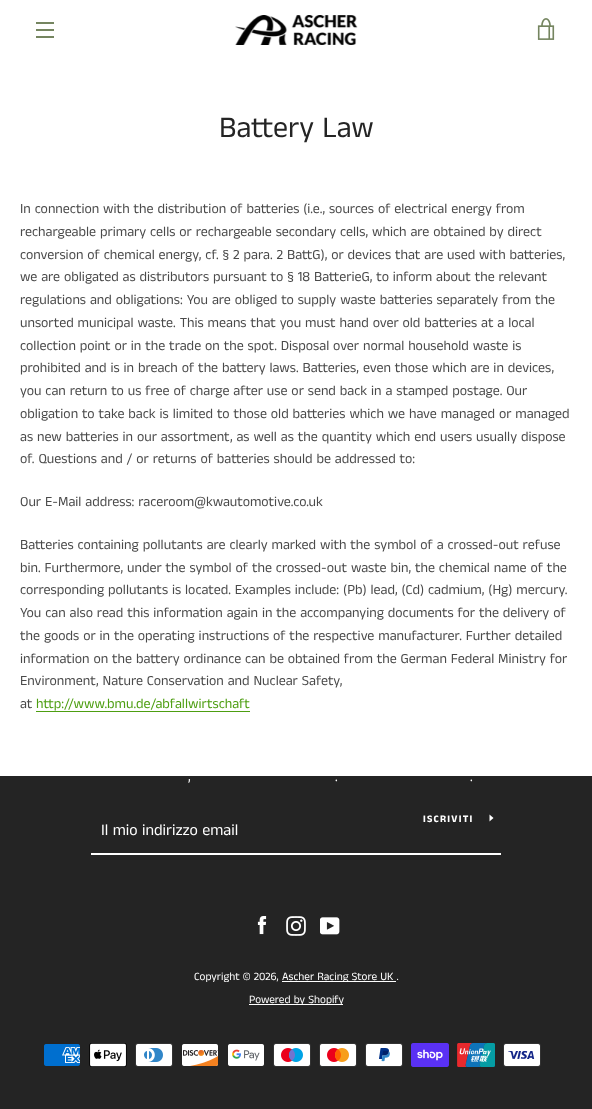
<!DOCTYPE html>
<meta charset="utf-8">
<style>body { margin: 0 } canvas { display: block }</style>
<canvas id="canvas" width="592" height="1109"></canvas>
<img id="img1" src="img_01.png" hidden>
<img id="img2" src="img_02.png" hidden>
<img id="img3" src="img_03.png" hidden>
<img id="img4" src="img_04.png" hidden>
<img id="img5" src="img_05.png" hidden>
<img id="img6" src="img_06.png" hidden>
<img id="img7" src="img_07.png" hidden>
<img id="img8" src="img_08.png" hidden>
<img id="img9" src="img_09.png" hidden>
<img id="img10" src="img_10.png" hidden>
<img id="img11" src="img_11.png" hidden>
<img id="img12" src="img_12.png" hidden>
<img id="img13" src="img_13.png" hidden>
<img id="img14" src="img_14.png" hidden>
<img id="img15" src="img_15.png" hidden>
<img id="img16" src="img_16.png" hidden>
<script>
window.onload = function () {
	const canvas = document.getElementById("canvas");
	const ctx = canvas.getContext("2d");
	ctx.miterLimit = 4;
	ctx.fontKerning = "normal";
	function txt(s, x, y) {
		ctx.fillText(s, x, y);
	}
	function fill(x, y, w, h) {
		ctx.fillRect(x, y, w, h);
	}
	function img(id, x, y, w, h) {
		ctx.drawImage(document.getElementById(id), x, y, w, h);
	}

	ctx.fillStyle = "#FFFFFF";
	fill(0, 0, 592, 1109);
	ctx.fillStyle = "#758560";
	fill(36, 22, 18, 2);
	fill(36, 29, 18, 2);
	fill(36, 36, 18, 2);
	img("img1", 235, 15, 123, 30);
	img("img2", 537, 18, 18, 22);
	ctx.fillStyle = "#4D9E11";
	fill(36, 711, 214, 1);
	ctx.fillStyle = "#242424";
	fill(0, 776, 592, 333);
	ctx.fillStyle = "#FFFFFF";
	fill(91, 853, 410, 2);
	ctx.beginPath();
	ctx.moveTo(493.5, 818);
	ctx.lineTo(489.5, 821.5);
	ctx.lineTo(489.5, 814.5);
	ctx.closePath();
	ctx.fill();
	img("img3", 257, 916, 10, 19);
	img("img4", 286, 916, 20, 20);
	img("img5", 320, 917, 20, 18);
	fill(282, 981, 114, 1);
	fill(249, 1004, 94, 1);
	img("img6", 44, 1044, 36, 22);
	img("img7", 89, 1043, 38, 24);
	img("img8", 135, 1043, 38, 24);
	img("img9", 182, 1044, 36, 22);
	img("img10", 228, 1044, 36, 22);
	img("img11", 273, 1043, 38, 24);
	img("img12", 319, 1043, 38, 24);
	img("img13", 365, 1043, 38, 24);
	img("img14", 411, 1043, 38, 24);
	img("img15", 457, 1043, 38, 24);
	img("img16", 503, 1043, 38, 24);
	ctx.font = "30px Anek Tamil";
	ctx.fillStyle = "#242424";
	txt("Battery Law", 219, 137);
	ctx.font = "14px Anek Tamil";
	ctx.fillStyle = "#4A4A4A";
	txt("In connection with the distribution of batteries (i.e., sources of electrical energy from", 20, 213);
	txt("rechargeable primary cells or rechargeable secondary cells, which are obtained by direct", 20, 236);
	txt("conversion of chemical energy, cf. § 2 para. 2 BattG), or devices that are used with batteries,", 20, 259);
	txt("we are obligated as distributors pursuant to § 18 BatterieG, to inform about the relevant", 20, 281);
	txt("regulations and obligations: You are obliged to supply waste batteries separately from the", 20, 304);
	txt("unsorted municipal waste. This means that you must hand over old batteries at a local", 20, 327);
	txt("collection point or in the trade on the spot. Disposal over normal household waste is", 20, 350);
	txt("prohibited and is in breach of the battery laws. Batteries, even those which are in devices,", 20, 372);
	txt("you can return to us free of charge after use or send back in a stamped postage. Our", 20, 395);
	txt("obligation to take back is limited to those old batteries which we have managed or managed", 20, 418);
	txt("as new batteries in our assortment, as well as the quantity which end users usually dispose", 20, 441);
	txt("of. Questions and / or returns of batteries should be addressed to:", 20, 463);
	txt("Our E-Mail address: raceroom@kwautomotive.co.uk", 20, 506);
	txt("Batteries containing pollutants are clearly marked with the symbol of a crossed-out refuse", 20, 549);
	txt("bin. Furthermore, under the symbol of the crossed-out waste bin, the chemical name of the", 20, 572);
	txt("corresponding pollutants is located. Examples include: (Pb) lead, (Cd) cadmium, (Hg) mercury.", 20, 594);
	txt("You can also read this information again in the accompanying documents for the delivery of", 20, 617);
	txt("the goods or in the operating instructions of the respective manufacturer. Further detailed", 20, 640);
	txt("information on the battery ordinance can be obtained from the German Federal Ministry for", 20, 663);
	txt("Environment, Nature Conservation and Nuclear Safety,", 20, 685);
	txt("at", 20, 708);
	ctx.fillStyle = "#4D9E11";
	txt("http://www.bmu.de/abfallwirtschaft", 36, 708);
	ctx.fillStyle = "#FFFFFF";
	txt(",", 188, 781);
	txt(".", 335, 781);
	txt(".", 470, 781);
	ctx.letterSpacing = "1.25px";
	ctx.font = "bold 10px Anek Tamil";
	txt("ISCRIVITI", 423, 822);
	ctx.letterSpacing = "0px";
	ctx.font = "16px Anek Tamil";
	txt("Il mio indirizzo email", 101, 835);
	ctx.font = "11.25px Anek Tamil";
	txt("Copyright © 2026,", 194, 980);
	txt("Ascher Racing Store UK .", 282, 980);
	txt("Powered by Shopify", 249, 1003);
};
</script>
